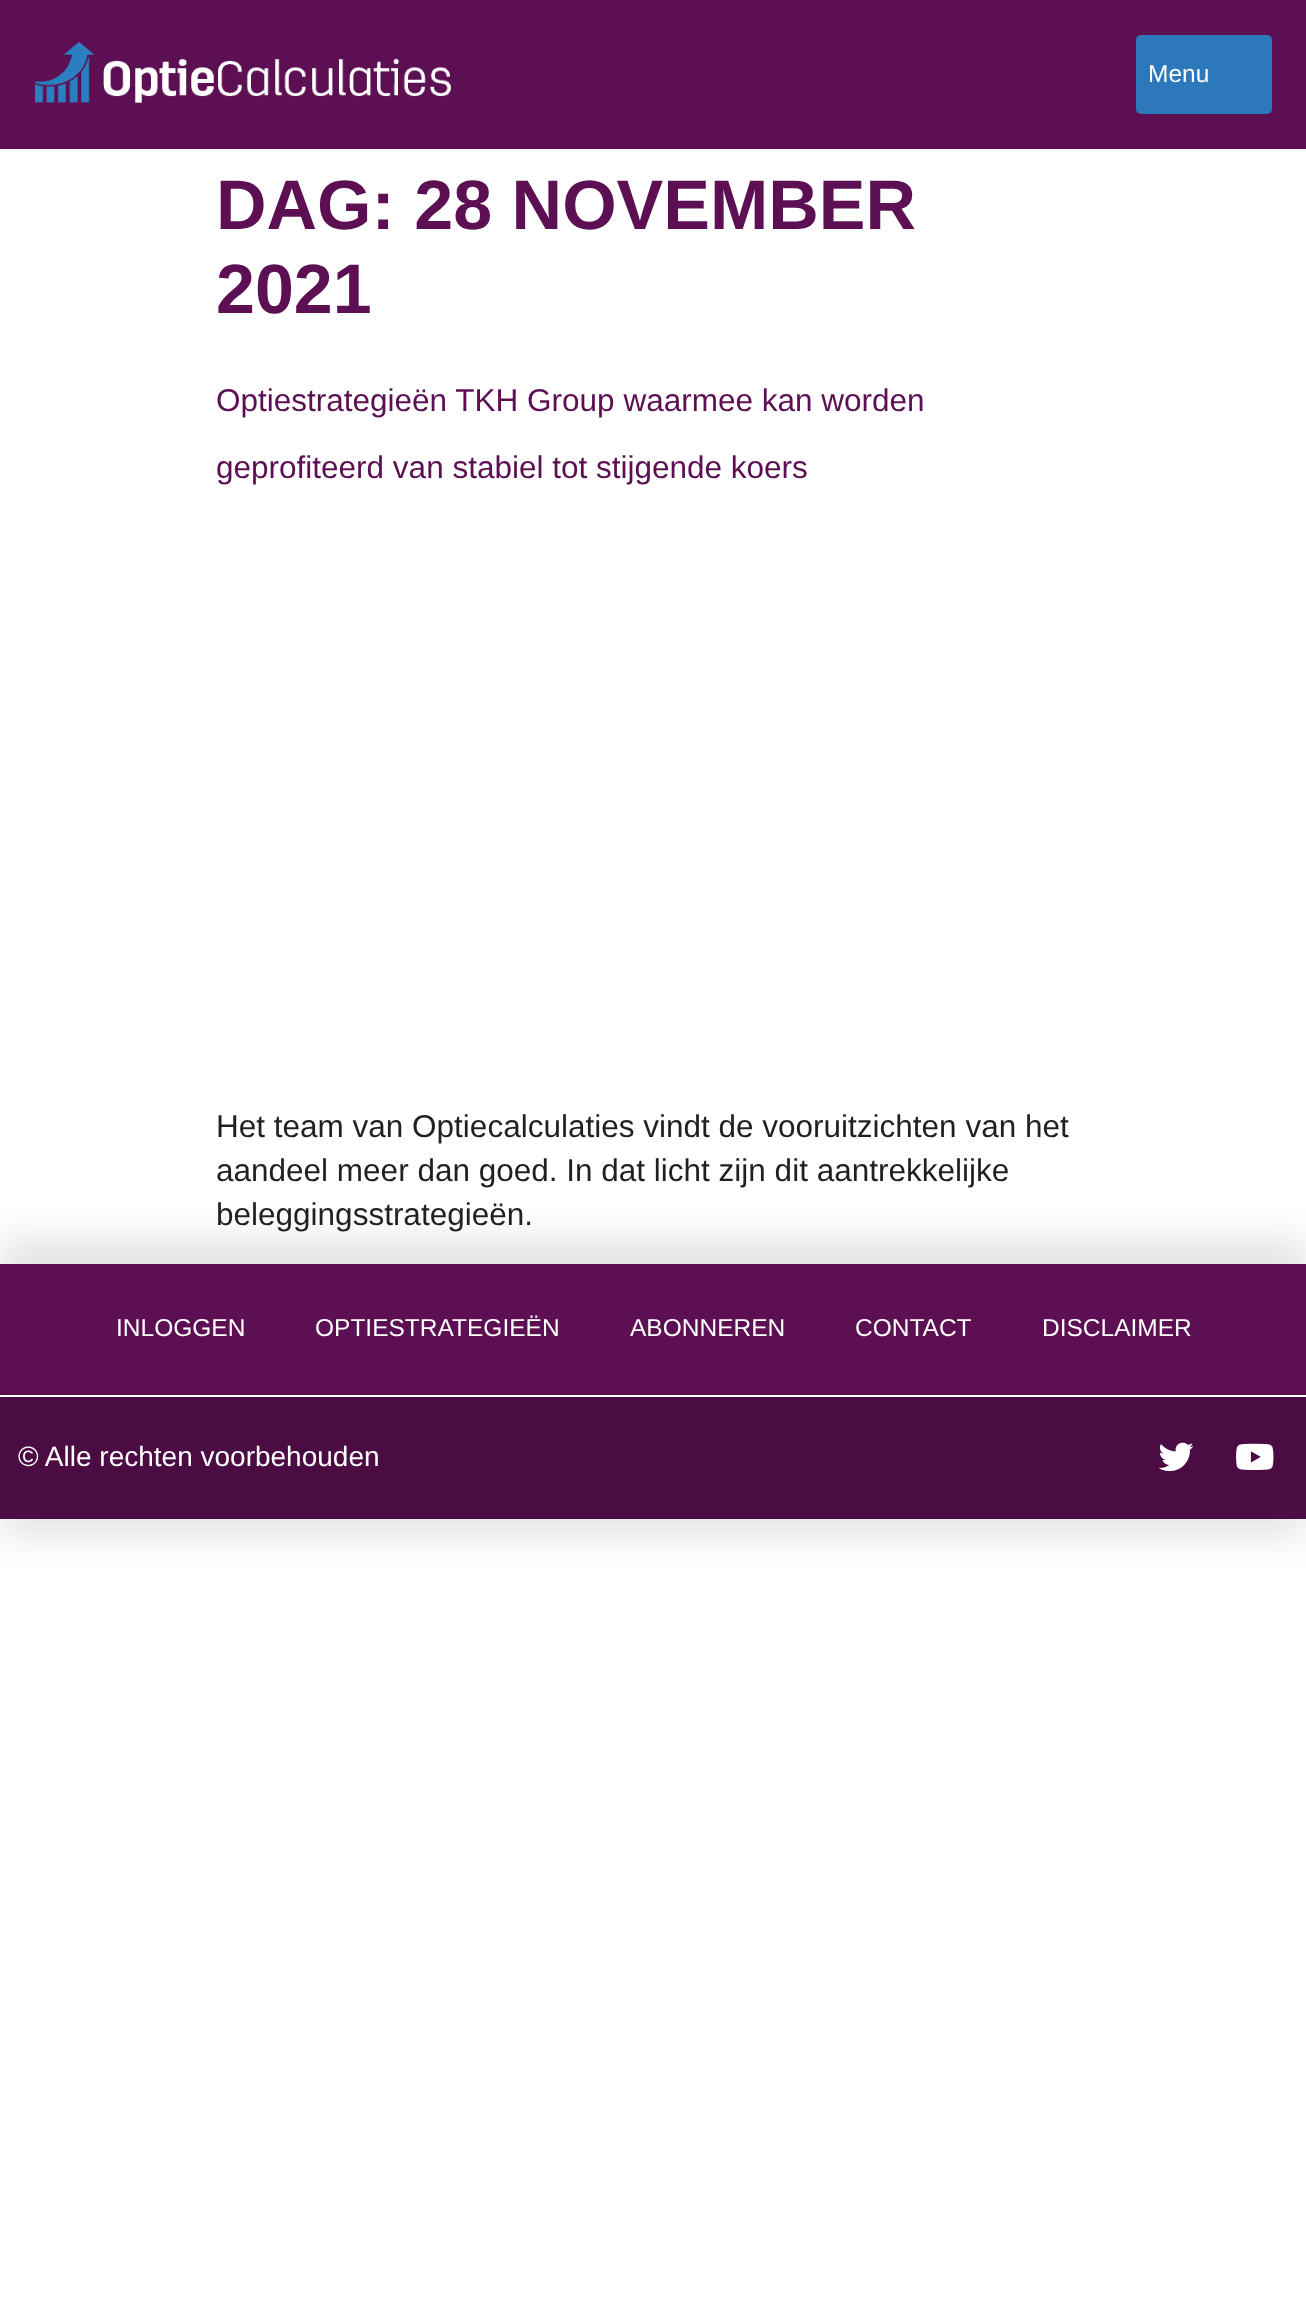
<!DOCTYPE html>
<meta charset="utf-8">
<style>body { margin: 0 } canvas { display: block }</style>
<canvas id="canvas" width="1306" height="2309"></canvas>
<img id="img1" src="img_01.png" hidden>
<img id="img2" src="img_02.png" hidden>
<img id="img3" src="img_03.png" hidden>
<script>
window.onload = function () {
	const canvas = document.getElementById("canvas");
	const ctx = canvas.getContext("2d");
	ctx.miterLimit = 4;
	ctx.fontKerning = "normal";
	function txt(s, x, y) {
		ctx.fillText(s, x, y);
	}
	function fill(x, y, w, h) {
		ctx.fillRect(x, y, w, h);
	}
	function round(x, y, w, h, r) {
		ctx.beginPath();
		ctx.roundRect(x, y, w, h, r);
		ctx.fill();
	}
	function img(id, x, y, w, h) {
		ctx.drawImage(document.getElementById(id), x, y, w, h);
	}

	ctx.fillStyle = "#FFFFFF";
	fill(0, 0, 1306, 2309);
	ctx.fillStyle = "#5C0F52";
	fill(0, 0, 1306, 149);
	img("img1", 35, 42, 416, 61);
	ctx.fillStyle = "#2D78BA";
	round(1136, 35, 136, 79, 5);
	ctx.fillStyle = "rgba(0, 0, 0, 0.1)";
	ctx.filter = "blur(17.5px)";
	ctx.beginPath();
	ctx.rect(0, 1237, 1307, 132);
	ctx.fill();
	ctx.filter = "none";
	ctx.fillStyle = "#5C0F52";
	fill(0, 1264, 1306, 131);
	ctx.fillStyle = "rgba(0, 0, 0, 0.1)";
	ctx.filter = "blur(17.5px)";
	ctx.beginPath();
	ctx.rect(0, 1412, 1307, 125);
	ctx.fill();
	ctx.filter = "none";
	ctx.fillStyle = "#4B0C43";
	fill(0, 1397, 1306, 122);
	ctx.fillStyle = "#FFFFFF";
	fill(0, 1395, 1306, 2);
	img("img2", 1158, 1442, 36, 30);
	img("img3", 1236, 1443, 38, 27);
	ctx.font = "24.5px Liberation Sans";
	txt("Menu", 1148, 82);
	ctx.font = "bold 70px Liberation Sans";
	ctx.fillStyle = "#5C0F52";
	txt("DAG: 28 NOVEMBER", 216, 229);
	txt("2021", 216, 313);
	ctx.font = "31.5px Liberation Sans";
	txt("Optiestrategieën TKH Group waarmee kan worden", 216, 411);
	txt("geprofiteerd van stabiel tot stijgende koers", 216, 478);
	ctx.fillStyle = "#231F20";
	txt("Het team van Optiecalculaties vindt de vooruitzichten van het", 216, 1137);
	txt("aandeel meer dan goed. In dat licht zijn dit aantrekkelijke", 216, 1181);
	txt("beleggingsstrategieën.", 216, 1225);
	ctx.font = "24.5px Liberation Sans";
	ctx.fillStyle = "#FFFFFF";
	txt("INLOGGEN", 116, 1336);
	txt("OPTIESTRATEGIEËN", 315, 1336);
	txt("ABONNEREN", 630, 1336);
	txt("CONTACT", 855, 1336);
	txt("DISCLAIMER", 1042, 1336);
	ctx.font = "28px Liberation Sans";
	txt("© Alle rechten voorbehouden", 18, 1466);
};
</script>
